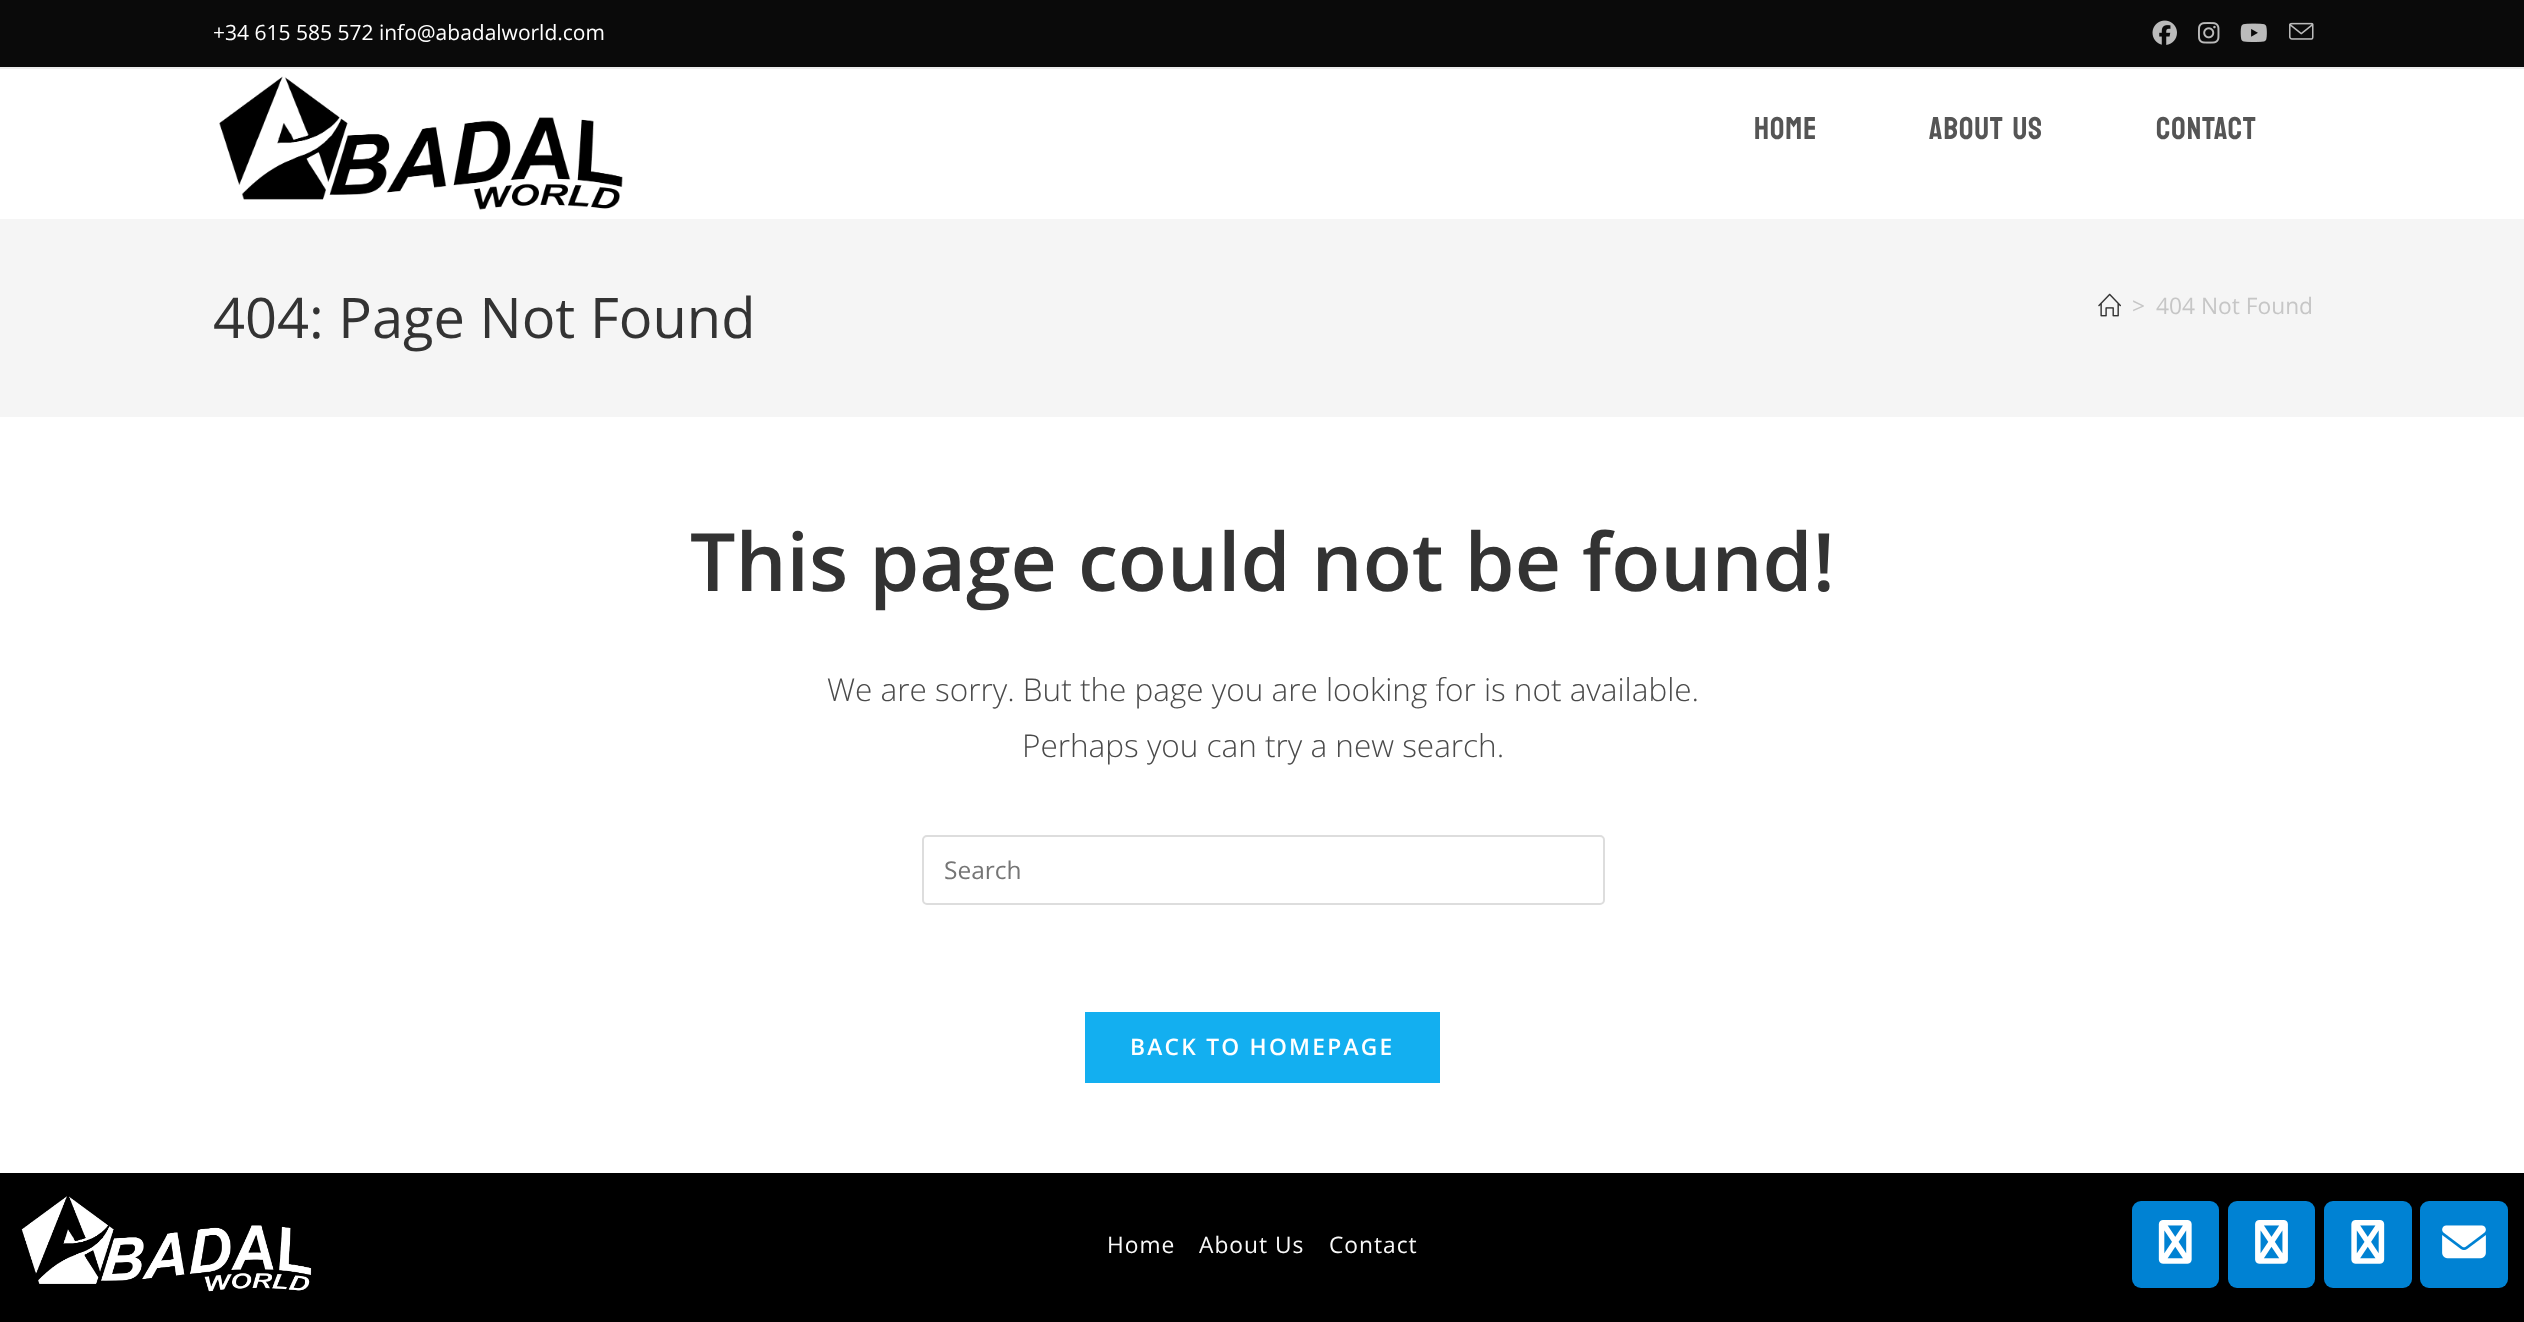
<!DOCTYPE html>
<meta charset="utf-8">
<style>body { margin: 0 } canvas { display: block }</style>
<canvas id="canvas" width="2524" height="1322"></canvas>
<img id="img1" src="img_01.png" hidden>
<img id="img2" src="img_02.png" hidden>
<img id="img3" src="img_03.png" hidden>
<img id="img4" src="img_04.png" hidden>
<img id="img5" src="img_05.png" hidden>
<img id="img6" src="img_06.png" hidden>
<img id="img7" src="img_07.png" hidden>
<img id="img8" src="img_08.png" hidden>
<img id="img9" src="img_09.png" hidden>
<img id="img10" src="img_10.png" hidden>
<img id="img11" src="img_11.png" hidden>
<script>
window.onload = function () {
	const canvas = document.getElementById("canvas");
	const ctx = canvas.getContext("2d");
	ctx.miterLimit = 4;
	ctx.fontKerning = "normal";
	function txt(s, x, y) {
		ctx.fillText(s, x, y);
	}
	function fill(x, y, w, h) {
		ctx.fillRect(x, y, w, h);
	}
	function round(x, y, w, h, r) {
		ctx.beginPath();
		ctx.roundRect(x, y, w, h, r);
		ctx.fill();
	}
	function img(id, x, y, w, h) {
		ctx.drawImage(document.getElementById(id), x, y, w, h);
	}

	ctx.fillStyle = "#FFFFFF";
	fill(0, 0, 2524, 1322);
	ctx.fillStyle = "#0A0A0A";
	fill(0, 0, 2524, 67);
	ctx.fillStyle = "#EDEDED";
	fill(0, 67, 2524, 2);
	img("img1", 2152, 20, 25, 25);
	img("img2", 2198, 22, 22, 22);
	img("img3", 2240, 23, 27, 19);
	img("img4", 2289, 22, 25, 18);
	img("img5", 219, 76, 404, 134);
	ctx.fillStyle = "#F5F5F5";
	fill(0, 219, 2524, 198);
	img("img6", 2098, 293, 23, 24);
	ctx.beginPath();
	ctx.roundRect(923, 836, 681, 68, 4);
	ctx.strokeStyle = "#DDDDDD";
	ctx.lineWidth = 2;
	ctx.stroke();
	ctx.fillStyle = "#13AFF0";
	fill(1085, 1012, 355, 71);
	ctx.fillStyle = "#000000";
	fill(0, 1173, 2524, 149);
	img("img7", 21, 1196, 291, 96);
	ctx.fillStyle = "#0082D3";
	round(2132, 1201, 87, 87, 9);
	img("img8", 2158, 1220, 34, 44);
	round(2228, 1201, 87, 87, 9);
	img("img9", 2255, 1220, 33, 44);
	round(2324, 1201, 88, 87, 9);
	img("img10", 2351, 1220, 34, 44);
	round(2420, 1201, 88, 87, 9);
	img("img11", 2442, 1225, 44, 34);
	ctx.font = "21px Open Sans";
	ctx.fillStyle = "#FFFFFF";
	txt("+34 615 585 572 info@abadalworld.com", 213, 40);
	ctx.letterSpacing = "1px";
	ctx.font = "31.5px Bayon";
	ctx.fillStyle = "#555555";
	txt("HOME", 1754, 139);
	txt("ABOUT US", 1929, 139);
	txt("CONTACT", 2156, 139);
	ctx.letterSpacing = "0px";
	ctx.font = "56px Open Sans";
	ctx.fillStyle = "#333333";
	txt("404: Page Not Found", 213, 338);
	ctx.font = "22.75px Open Sans";
	ctx.fillStyle = "#C6C6C6";
	txt(">", 2132, 314);
	txt("404 Not Found", 2156, 314);
	ctx.font = "600 80.5px Open Sans";
	ctx.fillStyle = "#333333";
	txt("This page could not be found!", 690, 591);
	ctx.font = "300 31.5px Open Sans";
	ctx.fillStyle = "#4A4A4A";
	txt("We are sorry. But the page you are looking for is not available.", 827, 701);
	txt("Perhaps you can try a new search.", 1022, 757);
	ctx.font = "24.5px Open Sans";
	ctx.fillStyle = "#757575";
	txt("Search", 944, 879);
	ctx.letterSpacing = "2.25px";
	ctx.font = "600 22.75px Open Sans";
	ctx.fillStyle = "#FFFFFF";
	txt("BACK TO HOMEPAGE", 1130, 1055);
	ctx.letterSpacing = "1px";
	ctx.font = "22.75px Open Sans";
	ctx.fillStyle = "#F9F9F9";
	txt("Home", 1107, 1253);
	txt("About Us", 1199, 1253);
	txt("Contact", 1329, 1253);
};
</script>
